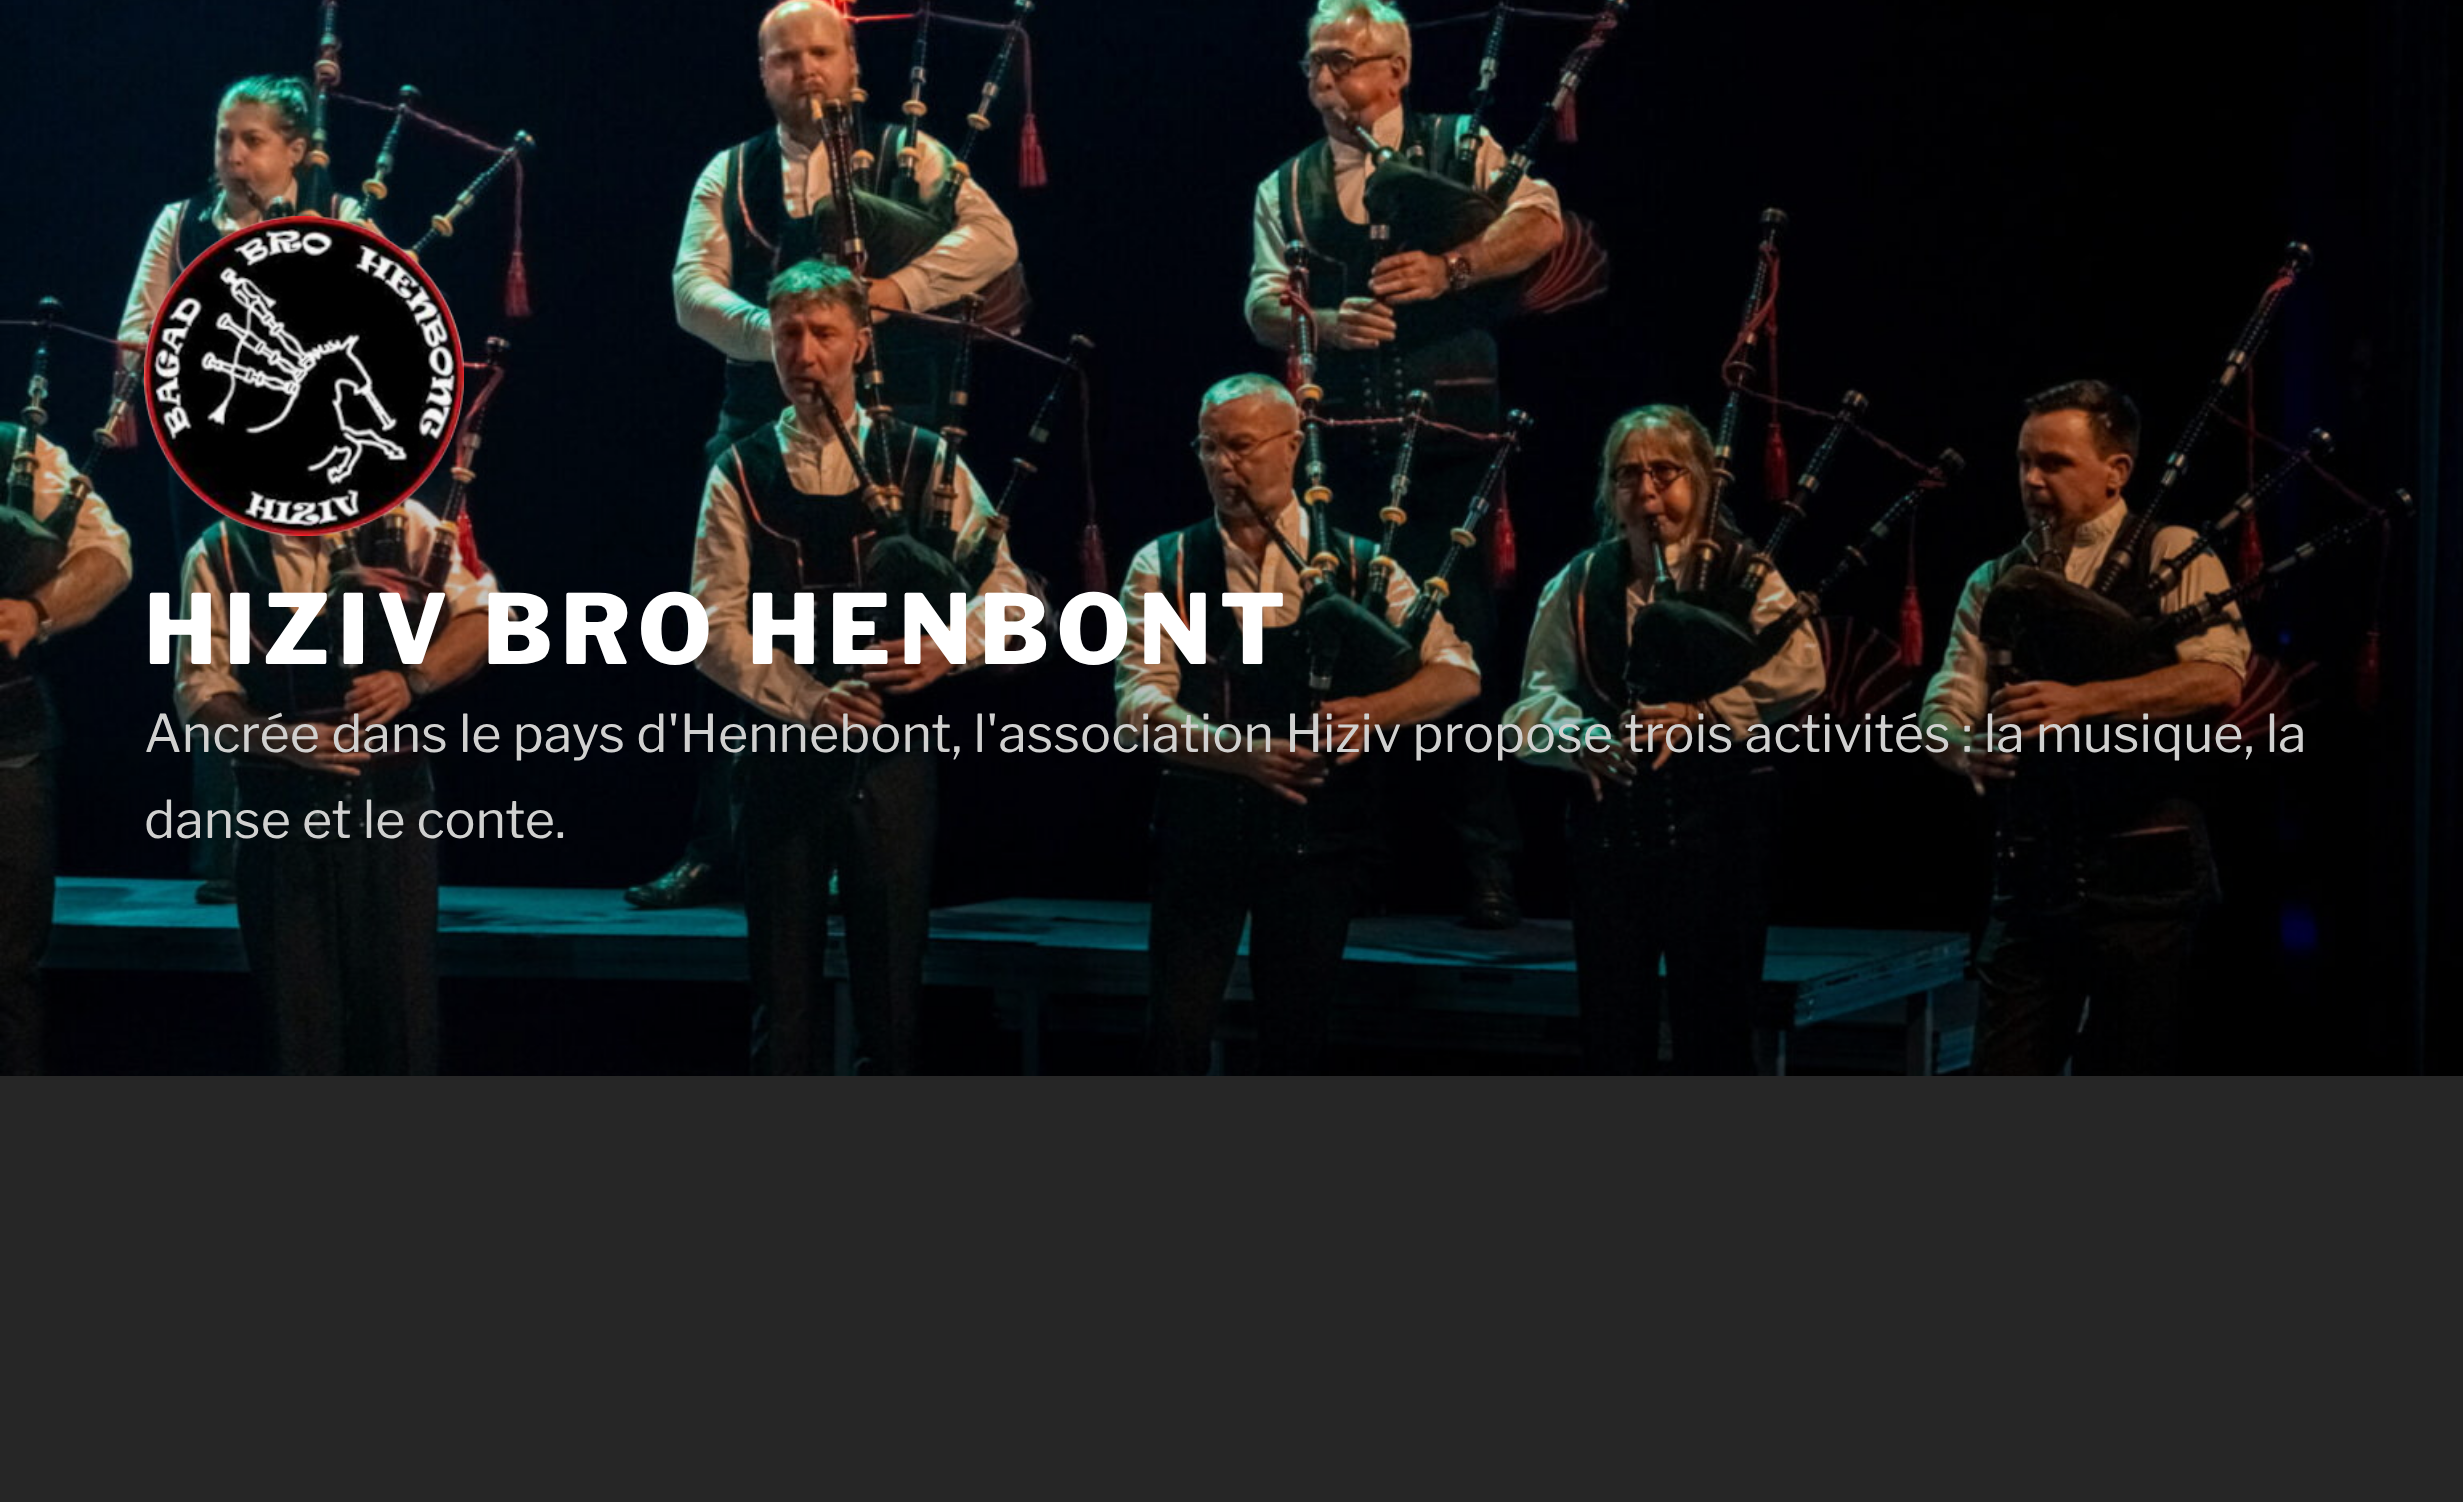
<!DOCTYPE html>
<meta charset="utf-8">
<style>body { margin: 0 } canvas { display: block }</style>
<canvas id="canvas" width="2463" height="1502"></canvas>
<img id="img1" src="img_01.png" hidden>
<img id="img2" src="img_02.png" hidden>
<script>
window.onload = function () {
	const canvas = document.getElementById("canvas");
	const ctx = canvas.getContext("2d");
	ctx.miterLimit = 4;
	ctx.fontKerning = "normal";
	function txt(s, x, y) {
		ctx.fillText(s, x, y);
	}
	function fill(x, y, w, h) {
		ctx.fillRect(x, y, w, h);
	}
	function img(id, x, y, w, h) {
		ctx.drawImage(document.getElementById(id), x, y, w, h);
	}

	ctx.fillStyle = "#262626";
	fill(0, 0, 2463, 1502);
	img("img1", 0, 0, 2463, 1076);
	img("img2", 144, 216, 320, 320);
	ctx.letterSpacing = "7.7px";
	ctx.font = "100 96px Libre Franklin";
	ctx.fillStyle = "#FFFFFF";
	txt("HIZIV BRO HENBONT", 144, 664);
	ctx.letterSpacing = "0px";
	ctx.font = "100 52px 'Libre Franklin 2'";
	ctx.fillStyle = "#D0D0CF";
	txt("Ancrée dans le pays d'Hennebont, l'association Hiziv propose trois activités : la musique, la", 144, 752);
	txt("danse et le conte.", 144, 838);
};
</script>
